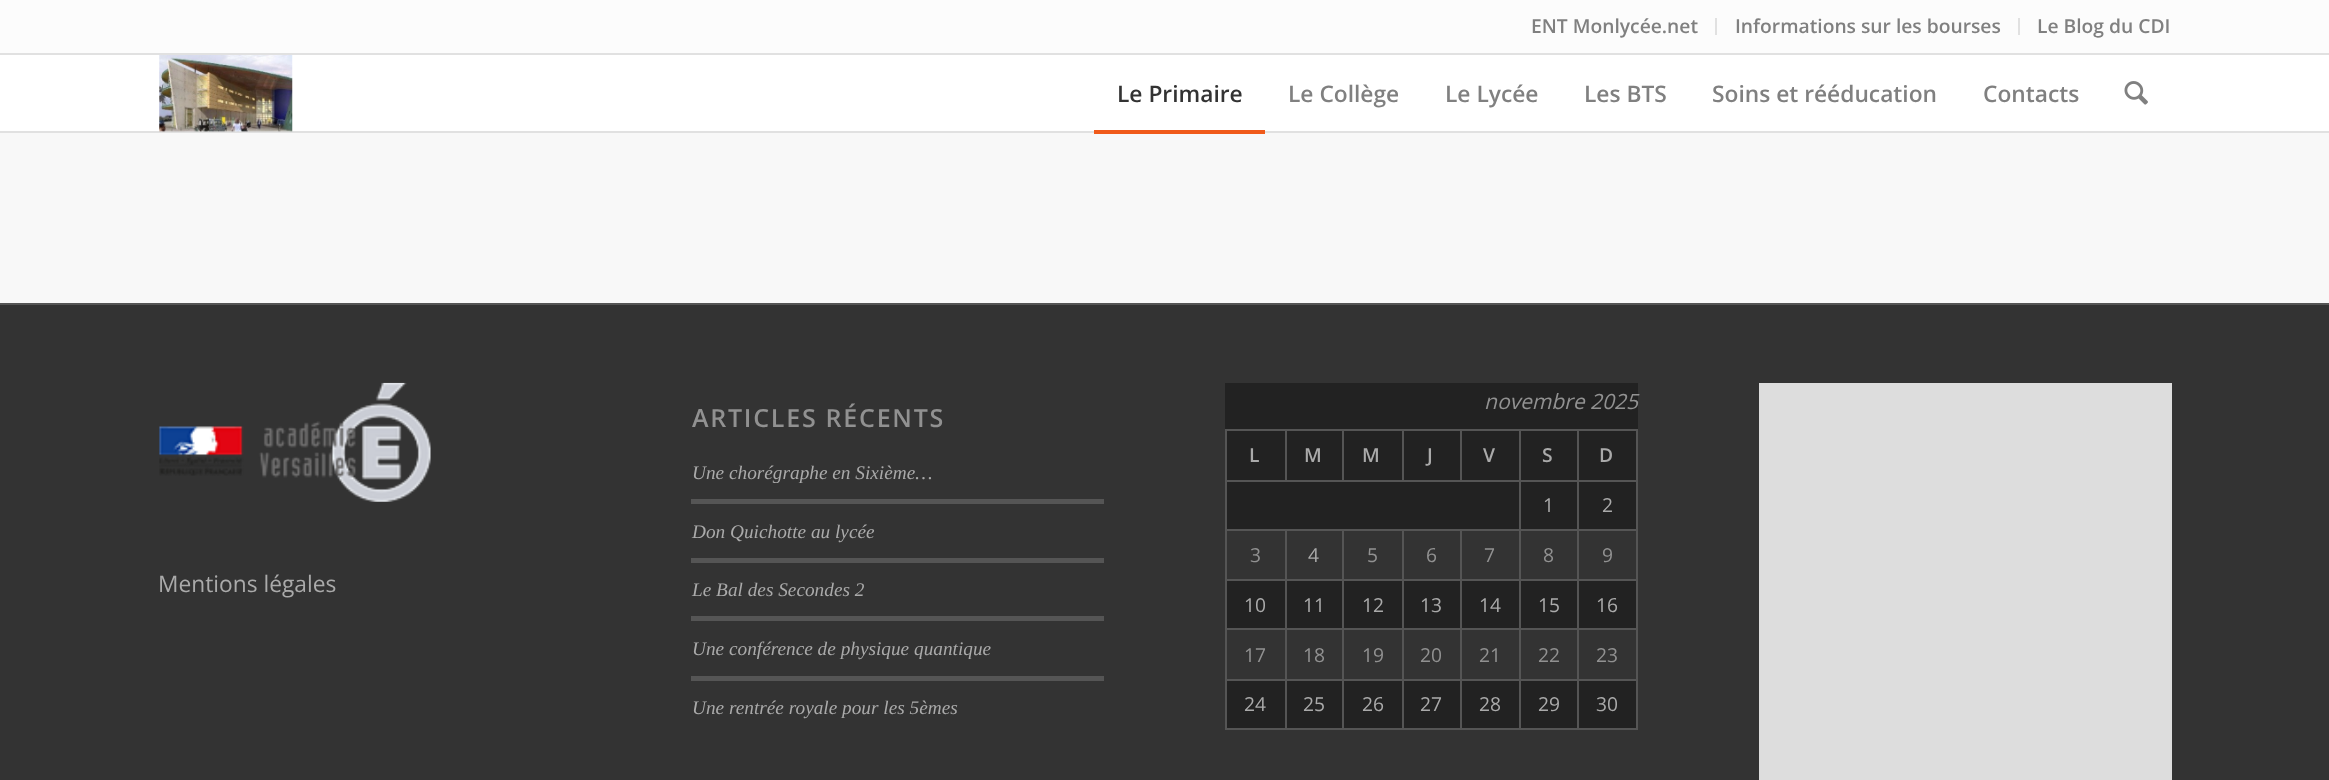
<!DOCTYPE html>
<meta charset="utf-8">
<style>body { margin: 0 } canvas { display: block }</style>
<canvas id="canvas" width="2329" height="780"></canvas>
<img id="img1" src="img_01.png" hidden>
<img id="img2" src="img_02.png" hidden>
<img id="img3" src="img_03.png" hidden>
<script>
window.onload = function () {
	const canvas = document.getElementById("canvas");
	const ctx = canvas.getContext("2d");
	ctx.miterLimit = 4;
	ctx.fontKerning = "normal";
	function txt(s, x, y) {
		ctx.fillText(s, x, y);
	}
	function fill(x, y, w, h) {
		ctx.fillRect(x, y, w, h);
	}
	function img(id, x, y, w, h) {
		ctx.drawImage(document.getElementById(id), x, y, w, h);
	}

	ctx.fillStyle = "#FFFFFF";
	fill(0, 0, 2329, 780);
	ctx.fillStyle = "#FCFCFC";
	fill(0, 0, 2329, 53);
	ctx.fillStyle = "#E1E1E1";
	fill(0, 53, 2329, 2);
	fill(1715, 18, 2, 17);
	fill(2018, 18, 2, 17);
	fill(0, 131, 2329, 2);
	img("img1", 159, 55, 134, 77);
	ctx.fillStyle = "#F8F8F8";
	fill(0, 133, 2329, 170);
	ctx.fillStyle = "#F05A1A";
	fill(1094, 130, 171, 4);
	img("img2", 2124, 81, 24, 24);
	ctx.fillStyle = "#333333";
	fill(0, 305, 2329, 475);
	ctx.fillStyle = "#555555";
	fill(0, 303, 2329, 2);
	img("img3", 159, 382, 272, 120);
	fill(691, 499, 413, 5);
	fill(691, 558, 413, 5);
	fill(691, 616, 413, 5);
	fill(691, 676, 413, 5);
	ctx.fillStyle = "#222222";
	fill(1225, 383, 413, 345);
	ctx.fillStyle = "#555555";
	fill(1225, 429, 413, 2);
	fill(1225, 480, 413, 2);
	fill(1285, 429, 2, 52);
	fill(1636, 529, 2, 201);
	fill(1636, 480, 2, 50);
	ctx.fillStyle = "#333333";
	fill(1227, 531, 409, 48);
	fill(1227, 630, 409, 49);
	ctx.fillStyle = "#555555";
	fill(1577, 728, 61, 2);
	fill(1577, 679, 2, 51);
	fill(1577, 679, 61, 2);
	fill(1577, 628, 2, 53);
	fill(1577, 628, 61, 2);
	fill(1577, 579, 2, 51);
	fill(1577, 579, 61, 2);
	fill(1577, 529, 2, 52);
	fill(1577, 529, 61, 2);
	fill(1577, 480, 2, 50);
	fill(1519, 728, 60, 2);
	fill(1519, 679, 2, 51);
	fill(1519, 679, 60, 2);
	fill(1519, 628, 2, 53);
	fill(1519, 628, 60, 2);
	fill(1519, 579, 2, 51);
	fill(1519, 579, 60, 2);
	fill(1519, 529, 2, 52);
	fill(1519, 529, 60, 2);
	fill(1519, 480, 2, 50);
	fill(1460, 728, 61, 2);
	fill(1460, 679, 2, 51);
	fill(1460, 679, 61, 2);
	fill(1460, 628, 2, 53);
	fill(1460, 628, 61, 2);
	fill(1460, 579, 2, 51);
	fill(1460, 579, 61, 2);
	fill(1460, 529, 2, 52);
	fill(1402, 728, 59, 2);
	fill(1402, 679, 2, 51);
	fill(1402, 679, 59, 2);
	fill(1402, 628, 2, 53);
	fill(1402, 628, 59, 2);
	fill(1402, 579, 2, 51);
	fill(1402, 579, 59, 2);
	fill(1402, 529, 2, 52);
	fill(1342, 728, 62, 2);
	fill(1342, 679, 2, 51);
	fill(1342, 679, 62, 2);
	fill(1342, 628, 2, 53);
	fill(1342, 628, 62, 2);
	fill(1342, 579, 2, 51);
	fill(1342, 579, 62, 2);
	fill(1342, 529, 2, 52);
	fill(1285, 728, 59, 2);
	fill(1285, 679, 2, 51);
	fill(1285, 679, 59, 2);
	fill(1285, 628, 2, 53);
	fill(1285, 628, 59, 2);
	fill(1285, 579, 2, 51);
	fill(1285, 579, 59, 2);
	fill(1285, 529, 2, 52);
	fill(1225, 728, 61, 2);
	fill(1225, 679, 2, 51);
	fill(1225, 679, 61, 2);
	fill(1225, 628, 2, 53);
	fill(1225, 628, 61, 2);
	fill(1225, 579, 2, 51);
	fill(1225, 579, 61, 2);
	fill(1225, 529, 2, 52);
	fill(1225, 529, 296, 2);
	fill(1225, 480, 2, 50);
	fill(1225, 429, 2, 52);
	fill(1342, 429, 2, 52);
	fill(1402, 429, 2, 52);
	fill(1460, 429, 2, 52);
	fill(1519, 429, 2, 52);
	fill(1577, 429, 2, 52);
	fill(1636, 429, 2, 52);
	ctx.fillStyle = "#DDDDDD";
	fill(1759, 383, 413, 397);
	ctx.font = "600 19.25px Open Sans";
	ctx.fillStyle = "#808080";
	txt("ENT Monlycée.net", 1531, 33);
	txt("Informations sur les bourses", 1735, 33);
	txt("Le Blog du CDI", 2037, 33);
	ctx.font = "600 22.75px Open Sans";
	ctx.fillStyle = "#333333";
	txt("Le Primaire", 1117, 102);
	ctx.fillStyle = "#808080";
	txt("Le Collège", 1288, 102);
	txt("Le Lycée", 1445, 102);
	txt("Les BTS", 1584, 102);
	txt("Soins et rééducation", 1712, 102);
	txt("Contacts", 1983, 102);
	ctx.font = "22.75px Open Sans";
	ctx.fillStyle = "#AAAAAA";
	txt("Mentions légales", 158, 592);
	ctx.letterSpacing = "1.75px";
	ctx.font = "600 25px Open Sans";
	ctx.fillStyle = "#919191";
	txt("ARTICLES RÉCENTS", 692, 427);
	ctx.letterSpacing = "0px";
	ctx.font = "italic 19.3px Liberation Serif";
	ctx.fillStyle = "#AAAAAA";
	txt("Une chorégraphe en Sixième…", 692, 479);
	txt("Don Quichotte au lycée", 692, 538);
	txt("Le Bal des Secondes 2", 692, 596);
	txt("Une conférence de physique quantique", 692, 655);
	txt("Une rentrée royale pour les 5èmes", 692, 714);
	ctx.font = "italic 21px Open Sans";
	ctx.fillStyle = "#919191";
	txt("novembre 2025", 1484, 409);
	ctx.letterSpacing = "3px";
	ctx.font = "600 19.25px Open Sans";
	ctx.fillStyle = "#AAAAAA";
	txt("L", 1249, 462);
	txt("M", 1304, 462);
	txt("M", 1362, 462);
	txt("J", 1427, 462);
	txt("V", 1483, 462);
	txt("S", 1542, 462);
	txt("D", 1599, 462);
	ctx.letterSpacing = "0px";
	ctx.font = "19.25px Open Sans";
	txt("1", 1543, 512);
	txt("2", 1602, 512);
	ctx.fillStyle = "#919191";
	txt("3", 1250, 562);
	ctx.fillStyle = "#AAAAAA";
	txt("4", 1308, 562);
	ctx.fillStyle = "#919191";
	txt("5", 1367, 562);
	txt("6", 1426, 562);
	txt("7", 1484, 562);
	txt("8", 1543, 562);
	txt("9", 1602, 562);
	ctx.fillStyle = "#AAAAAA";
	txt("10", 1244, 612);
	txt("11", 1303, 612);
	txt("12", 1362, 612);
	txt("13", 1420, 612);
	txt("14", 1479, 612);
	txt("15", 1538, 612);
	txt("16", 1596, 612);
	ctx.fillStyle = "#919191";
	txt("17", 1244, 662);
	txt("18", 1303, 662);
	txt("19", 1362, 662);
	txt("20", 1420, 662);
	txt("21", 1479, 662);
	txt("22", 1538, 662);
	txt("23", 1596, 662);
	ctx.fillStyle = "#AAAAAA";
	txt("24", 1244, 711);
	txt("25", 1303, 711);
	txt("26", 1362, 711);
	txt("27", 1420, 711);
	txt("28", 1479, 711);
	txt("29", 1538, 711);
	txt("30", 1596, 711);
};
</script>
